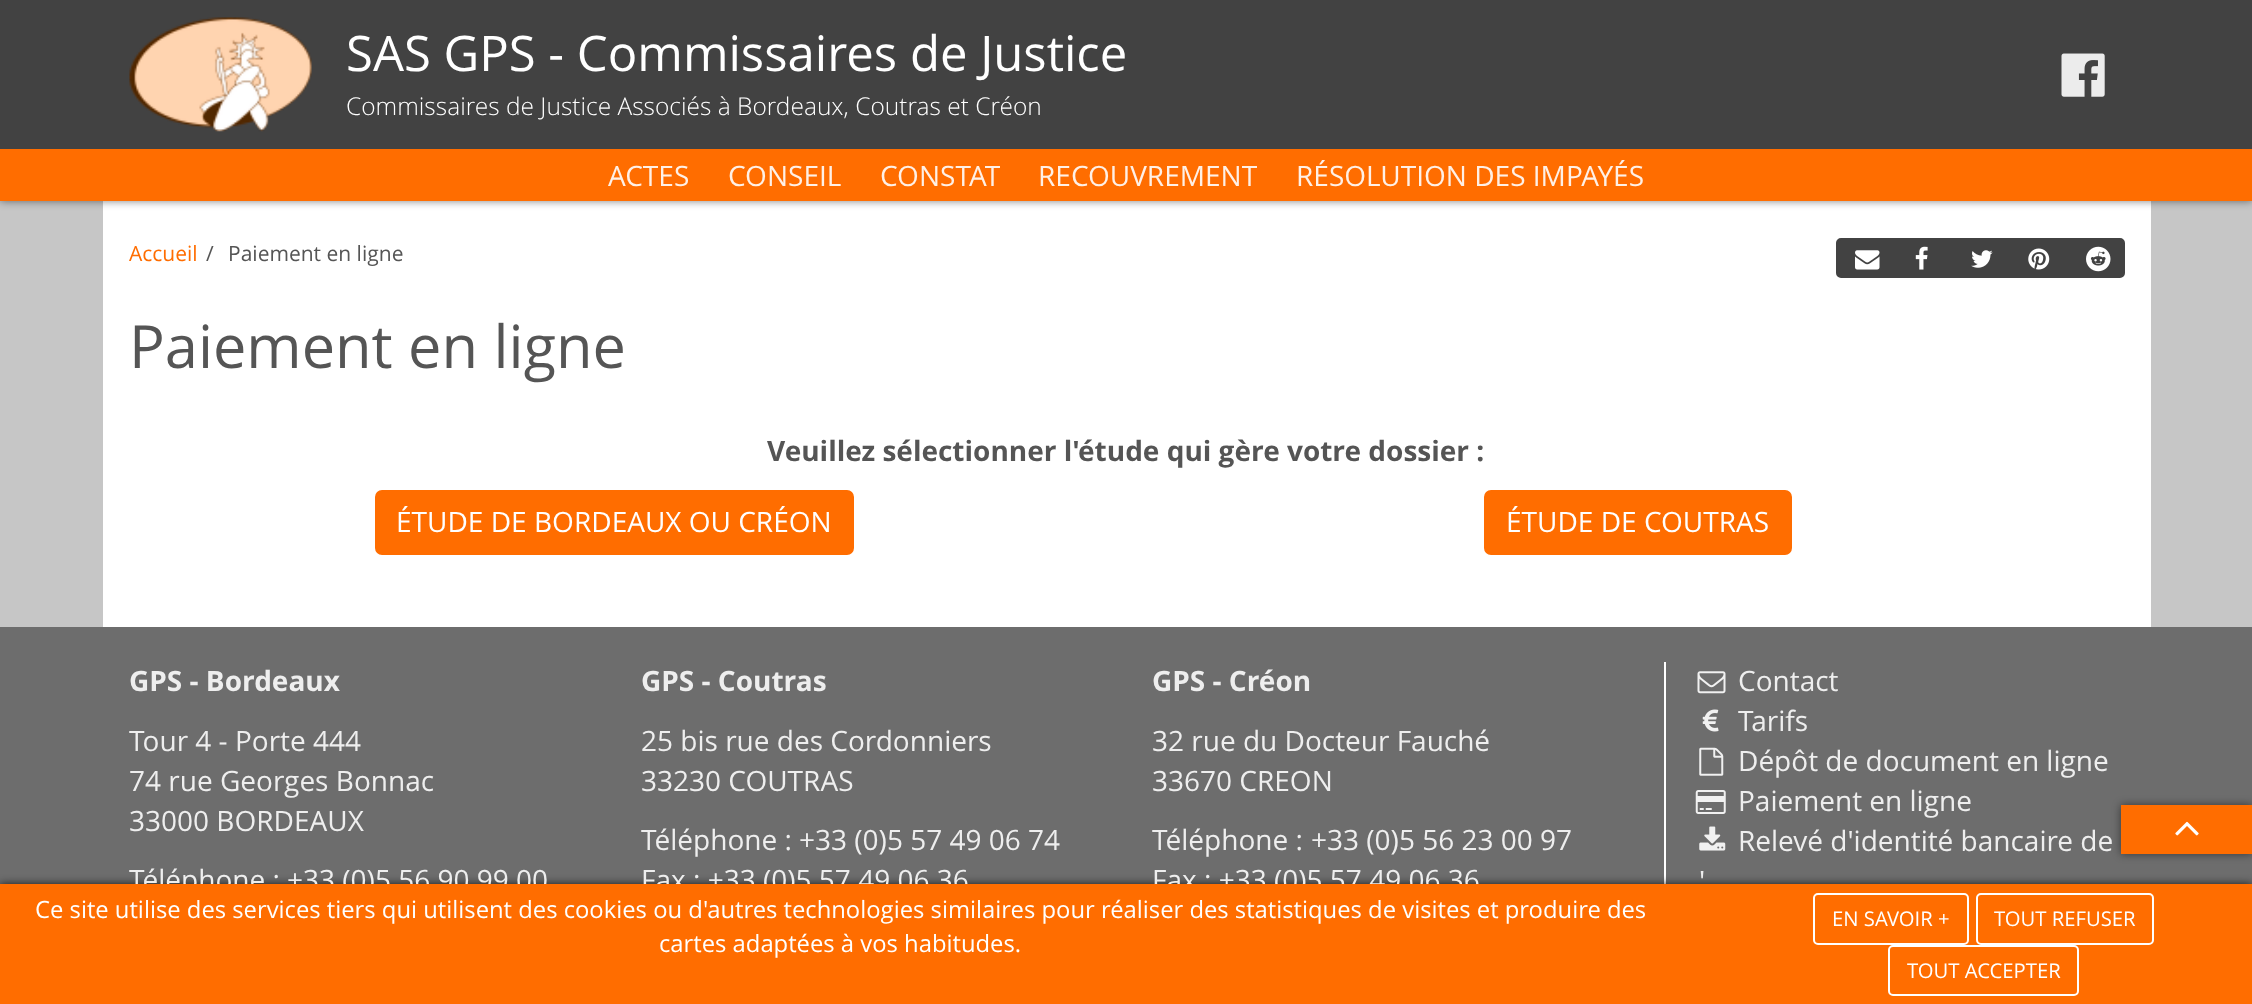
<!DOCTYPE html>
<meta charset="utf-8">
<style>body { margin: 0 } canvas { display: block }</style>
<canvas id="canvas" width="2252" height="1004"></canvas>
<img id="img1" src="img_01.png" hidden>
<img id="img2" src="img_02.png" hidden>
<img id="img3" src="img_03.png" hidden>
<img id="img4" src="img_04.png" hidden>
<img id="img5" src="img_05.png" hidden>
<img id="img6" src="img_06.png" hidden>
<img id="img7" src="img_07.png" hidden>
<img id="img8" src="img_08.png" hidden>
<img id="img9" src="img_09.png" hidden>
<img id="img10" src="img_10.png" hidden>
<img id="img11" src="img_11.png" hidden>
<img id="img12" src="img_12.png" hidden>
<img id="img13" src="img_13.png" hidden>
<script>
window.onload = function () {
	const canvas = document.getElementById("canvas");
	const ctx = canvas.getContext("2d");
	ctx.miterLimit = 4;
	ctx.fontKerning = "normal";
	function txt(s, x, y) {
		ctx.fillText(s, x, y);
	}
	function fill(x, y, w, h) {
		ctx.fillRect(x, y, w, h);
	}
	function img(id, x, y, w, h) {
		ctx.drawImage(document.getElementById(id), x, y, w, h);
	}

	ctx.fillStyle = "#C6C6C6";
	fill(0, 0, 2252, 1004);
	ctx.fillStyle = "#FFFFFF";
	fill(103, 201, 2048, 426);
	ctx.fillStyle = "rgba(0, 0, 0, 0.5)";
	ctx.filter = "blur(4.5px)";
	ctx.beginPath();
	ctx.rect(0, 0, 2252, 201);
	ctx.fill();
	ctx.filter = "none";
	ctx.fillStyle = "#424242";
	fill(0, 0, 2252, 149);
	img("img1", 129, 17, 183, 115);
	img("img2", 2061, 53, 44, 44);
	ctx.fillStyle = "#FF6D00";
	fill(0, 149, 2252, 52);
	ctx.fillStyle = "#424242";
	ctx.beginPath();
	ctx.roundRect(1837, 239, 56, 38, [4, 0, 0, 4]);
	ctx.fill();
	ctx.strokeStyle = "#424242";
	ctx.lineWidth = 2;
	ctx.stroke();
	img("img3", 1855, 250, 25, 20);
	fill(1894, 238, 173, 40);
	img("img4", 1915, 246, 13, 24);
	ctx.beginPath();
	ctx.roundRect(2068, 239, 56, 38, [0, 4, 4, 0]);
	ctx.fill();
	ctx.stroke();
	img("img5", 2086, 246, 25, 26);
	img("img6", 1971, 250, 22, 18);
	img("img7", 2028, 248, 22, 22);
	ctx.fillStyle = "#FF6D00";
	ctx.beginPath();
	ctx.roundRect(376, 491, 477, 63, 6);
	ctx.fill();
	ctx.strokeStyle = "#FF6D00";
	ctx.stroke();
	ctx.beginPath();
	ctx.roundRect(1485, 491, 306, 63, 6);
	ctx.fill();
	ctx.stroke();
	ctx.fillStyle = "#6D6D6D";
	fill(0, 627, 2252, 257);
	ctx.fillStyle = "#FFFFFF";
	fill(1664, 662, 2, 222);
	img("img8", 1697, 671, 29, 23);
	img("img9", 1702, 709, 17, 23);
	img("img10", 1699, 747, 25, 29);
	img("img11", 1695, 790, 31, 24);
	img("img12", 1699, 826, 27, 25);
	ctx.fillStyle = "rgba(0, 0, 0, 0.5)";
	ctx.filter = "blur(4.5px)";
	ctx.beginPath();
	ctx.rect(2121, 805, 131, 49);
	ctx.fill();
	ctx.filter = "none";
	ctx.fillStyle = "#FF6D00";
	fill(2121, 805, 131, 49);
	img("img13", 2175, 821, 24, 15);
	ctx.fillStyle = "rgba(0, 0, 0, 0.75)";
	ctx.filter = "blur(4.5px)";
	ctx.beginPath();
	ctx.rect(0, 884, 2252, 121);
	ctx.fill();
	ctx.filter = "none";
	ctx.font = "49px Open Sans";
	ctx.fillStyle = "#FFFFFF";
	txt("SAS GPS - Commissaires de Justice", 346, 71);
	ctx.font = "300 24.5px Open Sans";
	txt("Commissaires de Justice Associés à Bordeaux, Coutras et Créon", 346, 115);
	ctx.font = "28px Open Sans";
	ctx.fillStyle = "#FFF0E6";
	txt("ACTES", 608, 186);
	txt("CONSEIL", 728, 186);
	txt("CONSTAT", 880, 186);
	txt("RECOUVREMENT", 1038, 186);
	txt("RÉSOLUTION DES IMPAYÉS", 1296, 186);
	ctx.font = "21px Open Sans";
	ctx.fillStyle = "#FF6D00";
	txt("Accueil", 129, 261);
	ctx.fillStyle = "#555555";
	txt("/", 206, 261);
	txt("Paiement en ligne", 228, 261);
	ctx.font = "59.5px Open Sans";
	txt("Paiement en ligne", 129, 368);
	ctx.font = "bold 28px Open Sans";
	txt("Veuillez sélectionner l'étude qui gère votre dossier :", 767, 461);
	ctx.font = "28px Open Sans";
	ctx.fillStyle = "#FFFFFF";
	txt("ÉTUDE DE BORDEAUX OU CRÉON", 396, 532);
	txt("ÉTUDE DE COUTRAS", 1506, 532);
	ctx.font = "bold 28px Open Sans";
	ctx.fillStyle = "#EEEEEE";
	txt("GPS - Bordeaux", 129, 691);
	ctx.font = "28px Open Sans";
	txt("Tour 4 - Porte 444", 129, 751);
	txt("74 rue Georges Bonnac", 129, 791);
	txt("33000 BORDEAUX", 129, 831);
	txt("Téléphone :", 129, 890);
	txt("+33 (0)5 56 90 99 00", 287, 890);
	ctx.font = "bold 28px Open Sans";
	txt("GPS - Coutras", 641, 691);
	ctx.font = "28px Open Sans";
	txt("25 bis rue des Cordonniers", 641, 751);
	txt("33230 COUTRAS", 641, 791);
	txt("Téléphone :", 641, 850);
	txt("+33 (0)5 57 49 06 74", 799, 850);
	txt("Fax : +33 (0)5 57 49 06 36", 641, 890);
	ctx.font = "bold 28px Open Sans";
	txt("GPS - Créon", 1152, 691);
	ctx.font = "28px Open Sans";
	txt("32 rue du Docteur Fauché", 1152, 751);
	txt("33670 CREON", 1152, 791);
	txt("Téléphone :", 1152, 850);
	txt("+33 (0)5 56 23 00 97", 1311, 850);
	txt("Fax : +33 (0)5 57 49 06 36", 1152, 890);
	txt("Contact", 1738, 691);
	txt("Tarifs", 1738, 731);
	txt("Dépôt de document en ligne", 1738, 771);
	txt("Paiement en ligne", 1738, 811);
	txt("Relevé d'identité bancaire de", 1738, 851);
	txt("'", 1699, 891);
	ctx.fillStyle = "#FF6D00";
	fill(0, 884, 2252, 120);
	ctx.font = "23.8px Open Sans";
	ctx.fillStyle = "#FFFFFF";
	txt("Ce site utilise des services tiers qui utilisent des cookies ou d'autres technologies similaires pour réaliser des statistiques de visites et produire des", 35, 918);
	txt("cartes adaptées à vos habitudes.", 659, 952);
	ctx.beginPath();
	ctx.roundRect(1814, 894, 154, 50, 4);
	ctx.strokeStyle = "#FFFFFF";
	ctx.stroke();
	ctx.font = "20.25px Open Sans";
	txt("EN SAVOIR +", 1832, 926);
	ctx.beginPath();
	ctx.roundRect(1977, 894, 176, 50, 4);
	ctx.stroke();
	txt("TOUT REFUSER", 1994, 926);
	ctx.beginPath();
	ctx.roundRect(1889, 946, 189, 49, 4);
	ctx.stroke();
	txt("TOUT ACCEPTER", 1907, 978);
};
</script>
